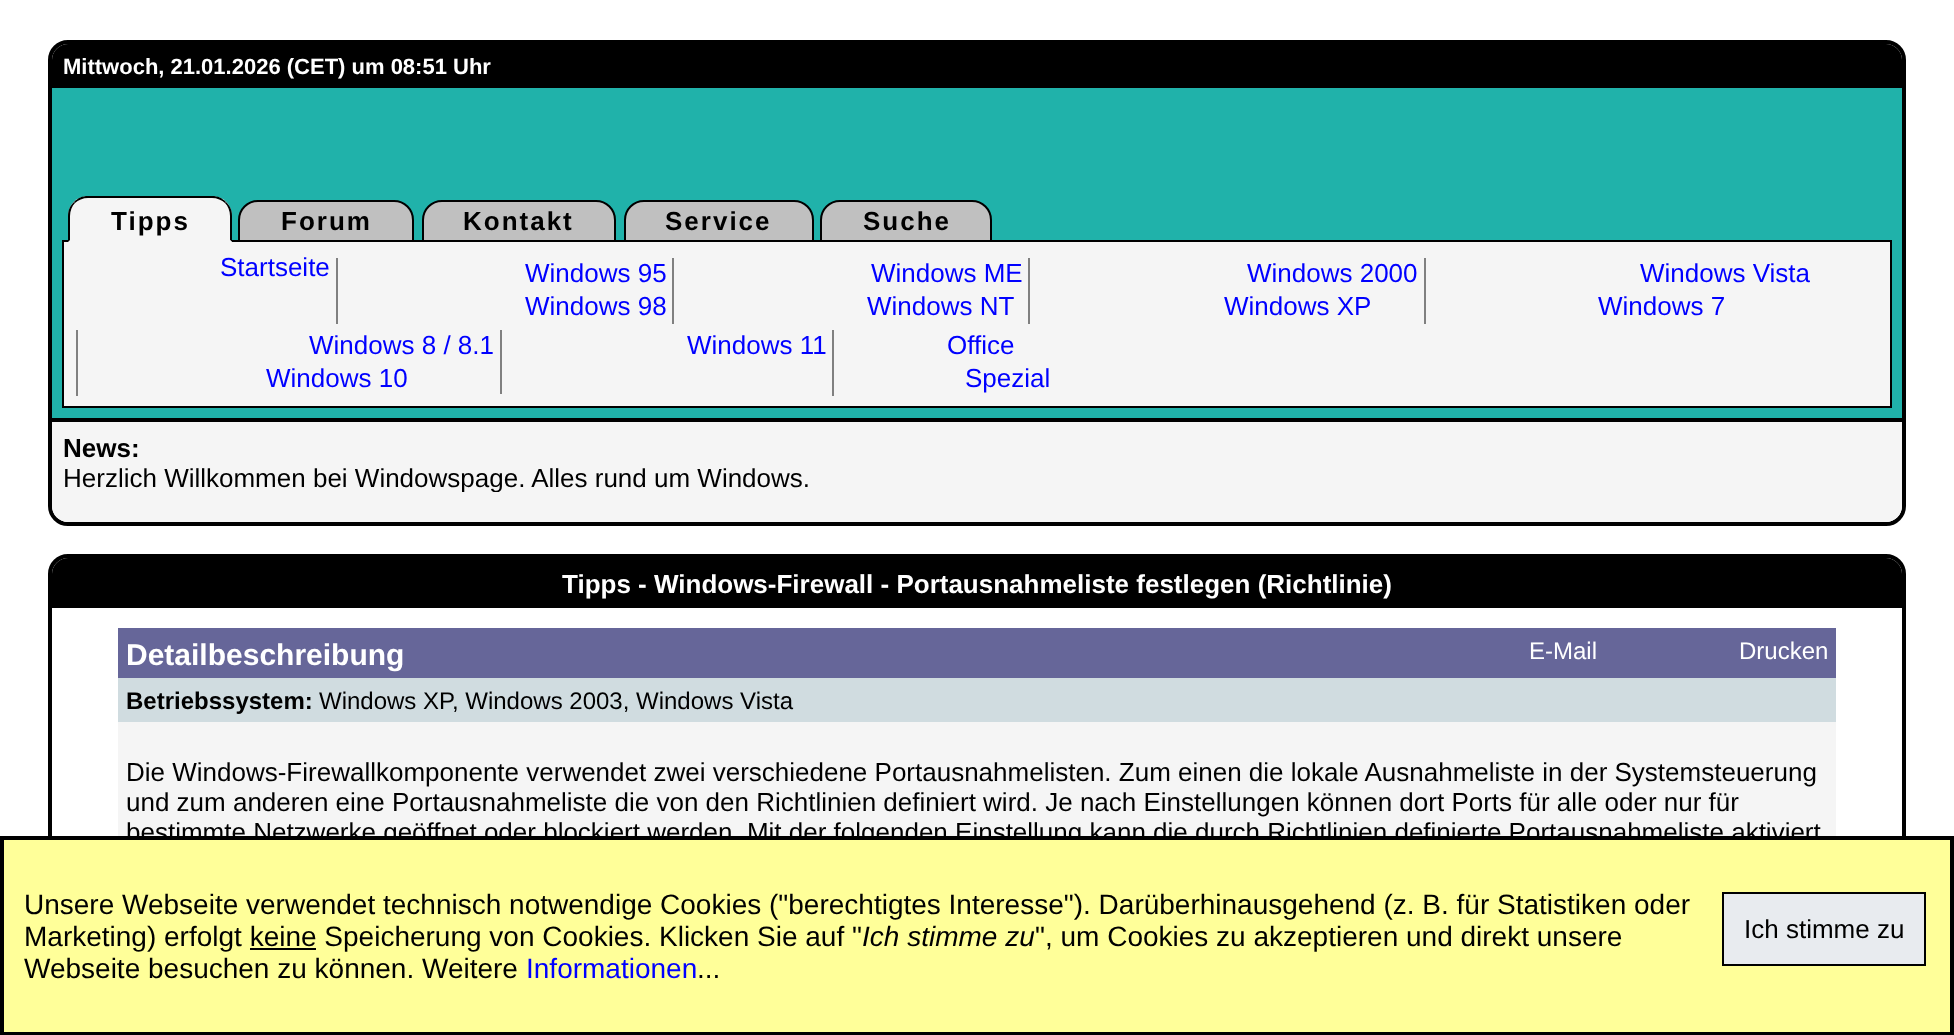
<!DOCTYPE html>
<meta charset="utf-8">
<style>body { margin: 0 } canvas { display: block }</style>
<canvas id="canvas" width="1954" height="1035"></canvas>
<script>
window.onload = function () {
	const canvas = document.getElementById("canvas");
	const ctx = canvas.getContext("2d");
	ctx.miterLimit = 4;
	ctx.fontKerning = "normal";
	function txt(s, x, y) {
		ctx.fillText(s, x, y);
	}
	function fill(x, y, w, h) {
		ctx.fillRect(x, y, w, h);
	}

	ctx.fillStyle = "#FFFFFF";
	fill(0, 0, 1954, 1035);
	ctx.beginPath();
	ctx.roundRect(50, 42, 1854, 482, 18);
	ctx.strokeStyle = "#000000";
	ctx.lineWidth = 4;
	ctx.stroke();
	ctx.fillStyle = "#000000";
	ctx.beginPath();
	ctx.roundRect(52, 44, 1850, 44, [16, 16, 0, 0]);
	ctx.fill();
	ctx.fillStyle = "#20B2AA";
	fill(52, 88, 1850, 330);
	ctx.fillStyle = "#000000";
	fill(62, 240, 1830, 2);
	ctx.fillStyle = "#F5F5F5";
	ctx.beginPath();
	ctx.roundRect(68, 196, 164, 46, [20, 20, 0, 0]);
	ctx.fill();
	ctx.fillStyle = "#000000";
	ctx.beginPath();
	ctx.moveTo(88, 196);
	ctx.bezierCurveTo(82, 196, 78, 198, 74, 202);
	ctx.lineTo(75, 203);
	ctx.bezierCurveTo(78, 200, 83, 198, 88, 198);
	ctx.lineTo(212, 198);
	ctx.bezierCurveTo(217, 198, 222, 200, 225, 203);
	ctx.lineTo(226, 202);
	ctx.bezierCurveTo(222, 198, 218, 196, 212, 196);
	ctx.closePath();
	ctx.fill();
	ctx.beginPath();
	ctx.moveTo(232, 242);
	ctx.lineTo(232, 216);
	ctx.bezierCurveTo(232, 210, 230, 206, 226, 202);
	ctx.lineTo(225, 203);
	ctx.bezierCurveTo(228, 206, 230, 211, 230, 216);
	ctx.lineTo(230, 240);
	ctx.closePath();
	ctx.fill();
	ctx.fillStyle = "#F5F5F5";
	ctx.beginPath();
	ctx.moveTo(232, 242);
	ctx.lineTo(230, 240);
	ctx.lineTo(70, 240);
	ctx.lineTo(68, 242);
	ctx.closePath();
	ctx.fill();
	ctx.fillStyle = "#000000";
	ctx.beginPath();
	ctx.moveTo(68, 242);
	ctx.lineTo(70, 240);
	ctx.lineTo(70, 216);
	ctx.bezierCurveTo(70, 211, 72, 206, 75, 203);
	ctx.lineTo(74, 202);
	ctx.bezierCurveTo(70, 206, 68, 210, 68, 216);
	ctx.closePath();
	ctx.fill();
	ctx.fillStyle = "#C0C0C0";
	ctx.beginPath();
	ctx.roundRect(239, 201, 174, 40, [19, 19, 0, 0]);
	ctx.fill();
	ctx.lineWidth = 2;
	ctx.stroke();
	ctx.beginPath();
	ctx.roundRect(423, 201, 192, 40, [19, 19, 0, 0]);
	ctx.fill();
	ctx.stroke();
	ctx.beginPath();
	ctx.roundRect(625, 201, 188, 40, [19, 19, 0, 0]);
	ctx.fill();
	ctx.stroke();
	ctx.beginPath();
	ctx.roundRect(821, 201, 170, 40, [19, 19, 0, 0]);
	ctx.fill();
	ctx.stroke();
	ctx.fillStyle = "#F5F5F5";
	fill(64, 242, 1826, 164);
	ctx.fillStyle = "#000000";
	fill(1890, 242, 2, 166);
	fill(62, 406, 1830, 2);
	fill(62, 242, 2, 166);
	ctx.fillStyle = "#808080";
	fill(336, 258, 2, 66);
	fill(672, 258, 2, 66);
	fill(1028, 258, 2, 66);
	fill(1424, 258, 2, 66);
	fill(76, 330, 2, 66);
	fill(500, 330, 2, 64);
	fill(832, 330, 2, 66);
	ctx.fillStyle = "#F5F5F5";
	ctx.beginPath();
	ctx.roundRect(52, 418, 1850, 104, [0, 0, 16, 16]);
	ctx.fill();
	ctx.fillStyle = "#000000";
	fill(52, 418, 1850, 4);
	ctx.beginPath();
	ctx.roundRect(50, 556, 1854, 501, 18);
	ctx.lineWidth = 4;
	ctx.stroke();
	ctx.beginPath();
	ctx.roundRect(52, 558, 1850, 50, [16, 16, 0, 0]);
	ctx.fill();
	ctx.fillStyle = "#666699";
	fill(118, 628, 1718, 50);
	ctx.fillStyle = "#D0DCE0";
	fill(118, 678, 1718, 44);
	ctx.fillStyle = "#F5F5F5";
	fill(118, 722, 1718, 114);
	ctx.font = "bold 22px Liberation Sans";
	ctx.fillStyle = "#FFFFFF";
	txt("Mittwoch, 21.01.2026 (CET) um 08:51 Uhr", 63, 74);
	ctx.letterSpacing = "2px";
	ctx.font = "bold 26px Liberation Sans";
	ctx.fillStyle = "#000000";
	txt("Tipps", 111, 230);
	txt("Forum", 281, 230);
	txt("Kontakt", 463, 230);
	txt("Service", 665, 230);
	txt("Suche", 863, 230);
	ctx.letterSpacing = "0px";
	ctx.font = "26px Liberation Sans";
	ctx.fillStyle = "#0000FF";
	txt("Startseite", 220, 276);
	txt("Windows 95", 525, 282);
	txt("Windows 98", 525, 315);
	txt("Windows ME", 871, 282);
	txt("Windows NT", 867, 315);
	txt("Windows 2000", 1247, 282);
	txt("Windows XP", 1224, 315);
	txt("Windows Vista", 1640, 282);
	txt("Windows 7", 1598, 315);
	txt("Windows 8 / 8.1", 309, 354);
	txt("Windows 10", 266, 387);
	txt("Windows 11", 687, 354);
	txt("Office", 947, 354);
	txt("Spezial", 965, 387);
	ctx.font = "bold 26px Liberation Sans";
	ctx.fillStyle = "#000000";
	txt("News:", 63, 457);
	ctx.save();
	ctx.beginPath();
	ctx.rect(62, 462, 1738, 30);
	ctx.clip();
	ctx.font = "26px Liberation Sans";
	txt("Herzlich Willkommen bei Windowspage. Alles rund um Windows.", 63, 487);
	ctx.restore();
	ctx.fillStyle = "#FFFFFF";
	txt("Tipps - Windows-Firewall - Portausnahmeliste festlegen (Richtlinie)", 562, 593);
	ctx.font = "bold 30px Liberation Sans";
	txt("Detailbeschreibung", 126, 665);
	ctx.font = "24px Liberation Sans";
	txt("E-Mail", 1529, 659);
	txt("Drucken", 1739, 659);
	ctx.font = "bold 24px Liberation Sans";
	ctx.fillStyle = "#000000";
	txt("Betriebssystem:", 126, 709);
	ctx.font = "24px Liberation Sans";
	txt("Windows XP, Windows 2003, Windows Vista", 319, 709);
	ctx.font = "26px Liberation Sans";
	txt("Die Windows-Firewallkomponente verwendet zwei verschiedene Portausnahmelisten. Zum einen die lokale Ausnahmeliste in der Systemsteuerung", 126, 781);
	txt("und zum anderen eine Portausnahmeliste die von den Richtlinien definiert wird. Je nach Einstellungen können dort Ports für alle oder nur für", 126, 811);
	txt("bestimmte Netzwerke geöffnet oder blockiert werden. Mit der folgenden Einstellung kann die durch Richtlinien definierte Portausnahmeliste aktiviert", 126, 841);
	ctx.fillStyle = "#FFFF99";
	ctx.beginPath();
	ctx.rect(2, 838, 1950, 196);
	ctx.fill();
	ctx.stroke();
	ctx.font = "28px Liberation Sans";
	ctx.fillStyle = "#000000";
	txt("Unsere Webseite verwendet technisch notwendige Cookies (\"berechtigtes Interesse\"). Darüberhinausgehend (z. B. für Statistiken oder", 24, 914);
	txt("Marketing) erfolgt keine Speicherung von Cookies. Klicken Sie auf \"", 24, 946);
	ctx.font = "italic 28px Liberation Sans";
	txt("Ich stimme zu", 862, 946);
	ctx.font = "28px Liberation Sans";
	txt("\", um Cookies zu akzeptieren und direkt unsere", 1035, 946);
	fill(250, 948, 66, 2);
	txt("Webseite besuchen zu können. Weitere", 24, 978);
	ctx.fillStyle = "#0000FF";
	txt("Informationen", 526, 978);
	ctx.fillStyle = "#000000";
	txt("...", 697, 978);
	ctx.fillStyle = "#E8EBEF";
	ctx.beginPath();
	ctx.rect(1723, 893, 202, 72);
	ctx.fill();
	ctx.lineWidth = 2;
	ctx.stroke();
	ctx.font = "26px Liberation Sans";
	ctx.fillStyle = "#000000";
	txt("Ich stimme zu", 1744, 938);
};
</script>
